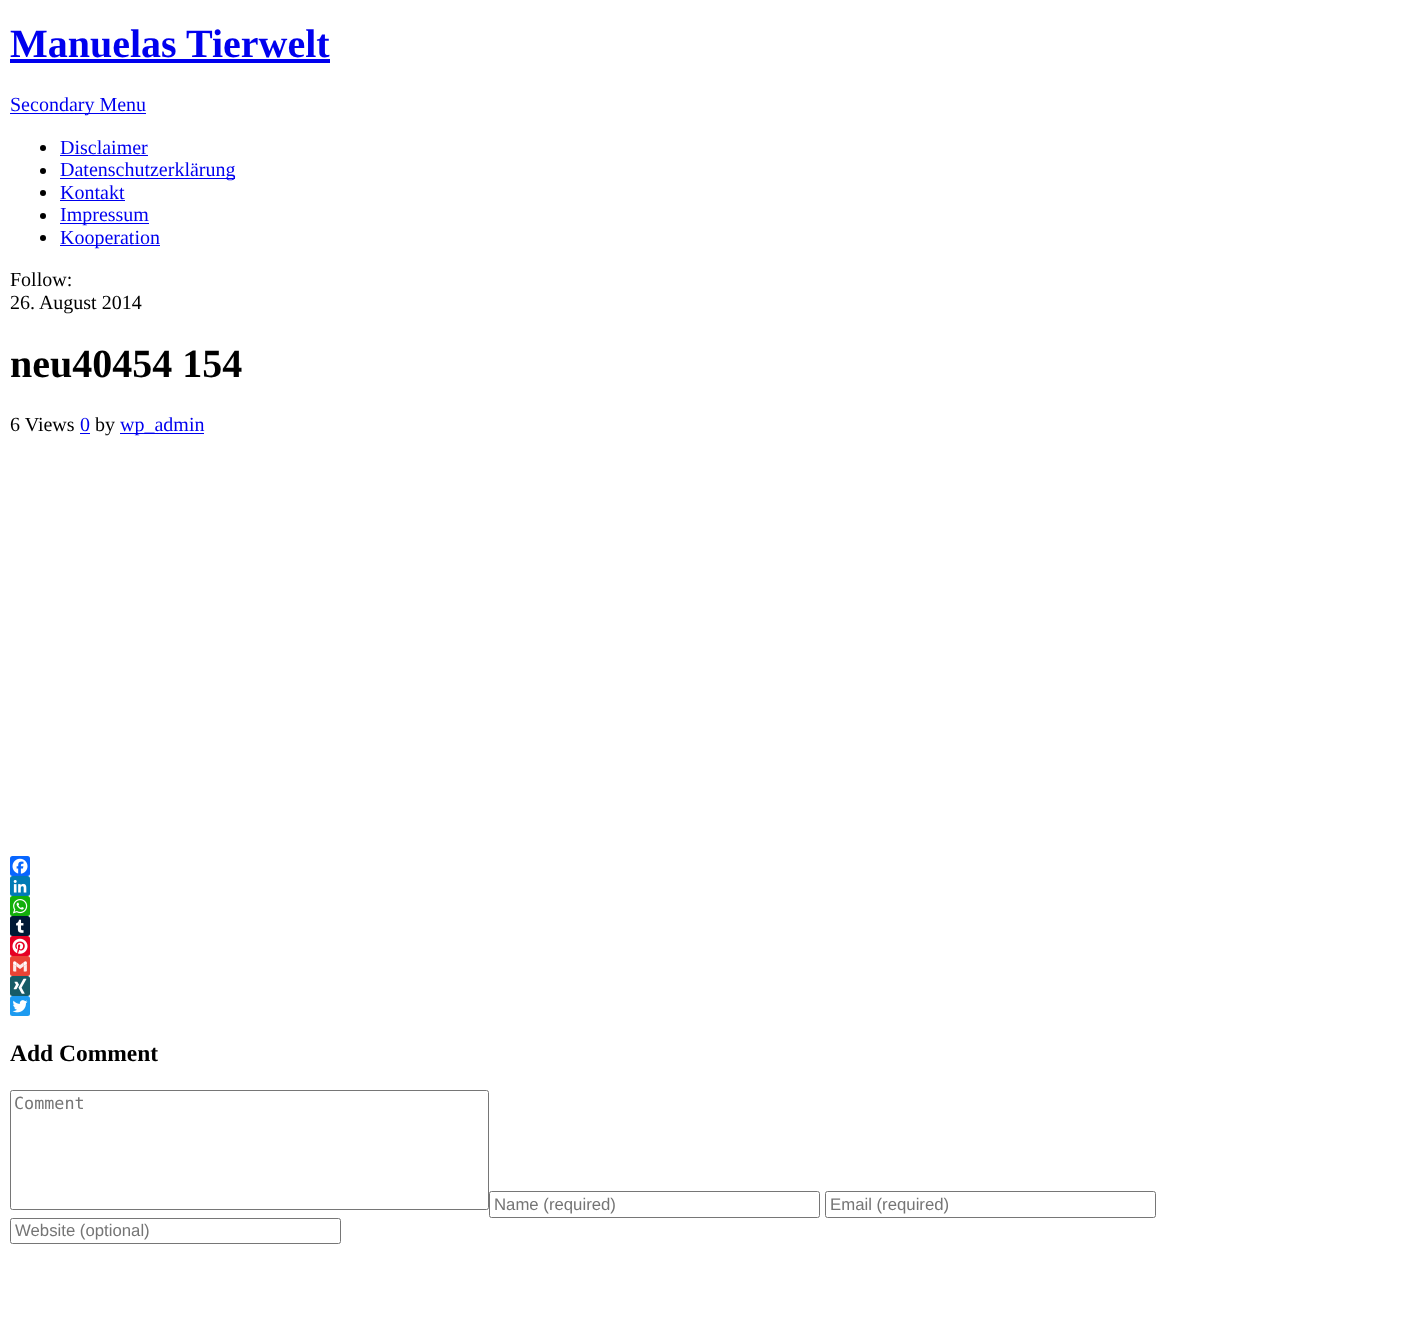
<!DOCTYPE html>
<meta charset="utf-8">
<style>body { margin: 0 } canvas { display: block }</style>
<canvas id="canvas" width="1422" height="1339"></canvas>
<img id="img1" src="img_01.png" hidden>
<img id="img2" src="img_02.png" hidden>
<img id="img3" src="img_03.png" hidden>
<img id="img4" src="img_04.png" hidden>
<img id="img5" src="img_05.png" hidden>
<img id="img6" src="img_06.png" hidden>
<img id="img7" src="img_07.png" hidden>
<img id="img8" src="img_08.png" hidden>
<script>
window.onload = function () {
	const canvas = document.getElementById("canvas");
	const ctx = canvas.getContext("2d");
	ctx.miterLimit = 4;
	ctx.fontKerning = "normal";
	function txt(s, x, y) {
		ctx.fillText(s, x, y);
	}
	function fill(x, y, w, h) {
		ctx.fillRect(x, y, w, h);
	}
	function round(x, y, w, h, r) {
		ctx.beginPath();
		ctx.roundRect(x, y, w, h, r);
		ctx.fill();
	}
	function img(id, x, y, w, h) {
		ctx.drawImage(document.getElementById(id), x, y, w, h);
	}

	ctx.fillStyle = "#FFFFFF";
	fill(0, 0, 1422, 1339);
	ctx.fillStyle = "#0000EE";
	fill(10, 59, 320, 4);
	fill(10, 113, 136, 1);
	ctx.fillStyle = "#000000";
	ctx.beginPath();
	ctx.arc(43, 148, 3, 0, Math.PI * 2);
	ctx.fill();
	ctx.fillStyle = "#0000EE";
	fill(60, 155, 88, 1);
	ctx.fillStyle = "#000000";
	ctx.beginPath();
	ctx.arc(43, 171, 3, 0, Math.PI * 2);
	ctx.fill();
	ctx.fillStyle = "#0000EE";
	fill(60, 178, 175, 1);
	ctx.fillStyle = "#000000";
	ctx.beginPath();
	ctx.arc(43, 193, 3, 0, Math.PI * 2);
	ctx.fill();
	ctx.fillStyle = "#0000EE";
	fill(60, 200, 65, 1);
	ctx.fillStyle = "#000000";
	ctx.beginPath();
	ctx.arc(43, 216, 3, 0, Math.PI * 2);
	ctx.fill();
	ctx.fillStyle = "#0000EE";
	fill(60, 223, 89, 1);
	ctx.fillStyle = "#000000";
	ctx.beginPath();
	ctx.arc(43, 238, 3, 0, Math.PI * 2);
	ctx.fill();
	ctx.fillStyle = "#0000EE";
	fill(60, 245, 100, 1);
	fill(80, 433, 10, 1);
	fill(120, 433, 84, 1);
	ctx.fillStyle = "#0866FF";
	round(10, 856, 20, 20, 2.5);
	img("img1", 12, 858, 16, 16);
	ctx.fillStyle = "#007BB5";
	round(10, 876, 20, 20, 2.5);
	img("img2", 13, 880, 14, 13);
	ctx.fillStyle = "#12AF0A";
	round(10, 896, 20, 20, 2.5);
	img("img3", 12, 899, 16, 15);
	ctx.fillStyle = "#001935";
	round(10, 916, 20, 20, 2.5);
	img("img4", 16, 919, 8, 14);
	ctx.fillStyle = "#E60023";
	round(10, 936, 20, 20, 2.5);
	img("img5", 12, 938, 16, 16);
	ctx.fillStyle = "#EA4335";
	round(10, 956, 20, 20, 2.5);
	img("img6", 13, 961, 14, 11);
	ctx.fillStyle = "#165B66";
	round(10, 976, 20, 20, 2.5);
	img("img7", 13, 978, 14, 16);
	ctx.fillStyle = "#1D9BF0";
	round(10, 996, 20, 20, 2.5);
	img("img8", 12, 1000, 16, 13);
	ctx.beginPath();
	ctx.roundRect(10.5, 1090.5, 478, 119, 2);
	ctx.strokeStyle = "#767676";
	ctx.stroke();
	ctx.beginPath();
	ctx.roundRect(489.5, 1191.5, 330, 26, 2);
	ctx.stroke();
	ctx.beginPath();
	ctx.roundRect(825.5, 1191.5, 330, 26, 2);
	ctx.stroke();
	ctx.beginPath();
	ctx.roundRect(10.5, 1218.5, 330, 25, 2);
	ctx.stroke();
	ctx.font = "bold 40px Liberation Serif";
	ctx.fillStyle = "#0000EE";
	txt("Manuelas Tierwelt", 10, 57);
	ctx.font = "20px Liberation Serif";
	txt("Secondary Menu", 10, 111);
	txt("Disclaimer", 60, 154);
	txt("Datenschutzerklärung", 60, 176);
	txt("Kontakt", 60, 199);
	txt("Impressum", 60, 221);
	txt("Kooperation", 60, 244);
	ctx.fillStyle = "#000000";
	txt("Follow:", 10, 286);
	txt("26. August 2014", 10, 309);
	ctx.font = "bold 40px Liberation Serif";
	txt("neu40454 154", 10, 377);
	ctx.font = "20px Liberation Serif";
	txt("6 Views", 10, 431);
	ctx.fillStyle = "#0000EE";
	txt("0", 80, 431);
	ctx.fillStyle = "#000000";
	txt("by", 95, 431);
	ctx.fillStyle = "#0000EE";
	txt("wp_admin", 120, 431);
	ctx.font = "bold 23.5px Liberation Serif";
	ctx.fillStyle = "#000000";
	txt("Add Comment", 10, 1061);
	ctx.font = "16.75px DejaVu Sans Mono";
	ctx.fillStyle = "#757575";
	txt("Comment", 14, 1109);
	ctx.font = "16.75px Liberation Sans";
	txt("Name (required)", 494, 1210);
	txt("Email (required)", 830, 1210);
	txt("Website (optional)", 15, 1236);
};
</script>
